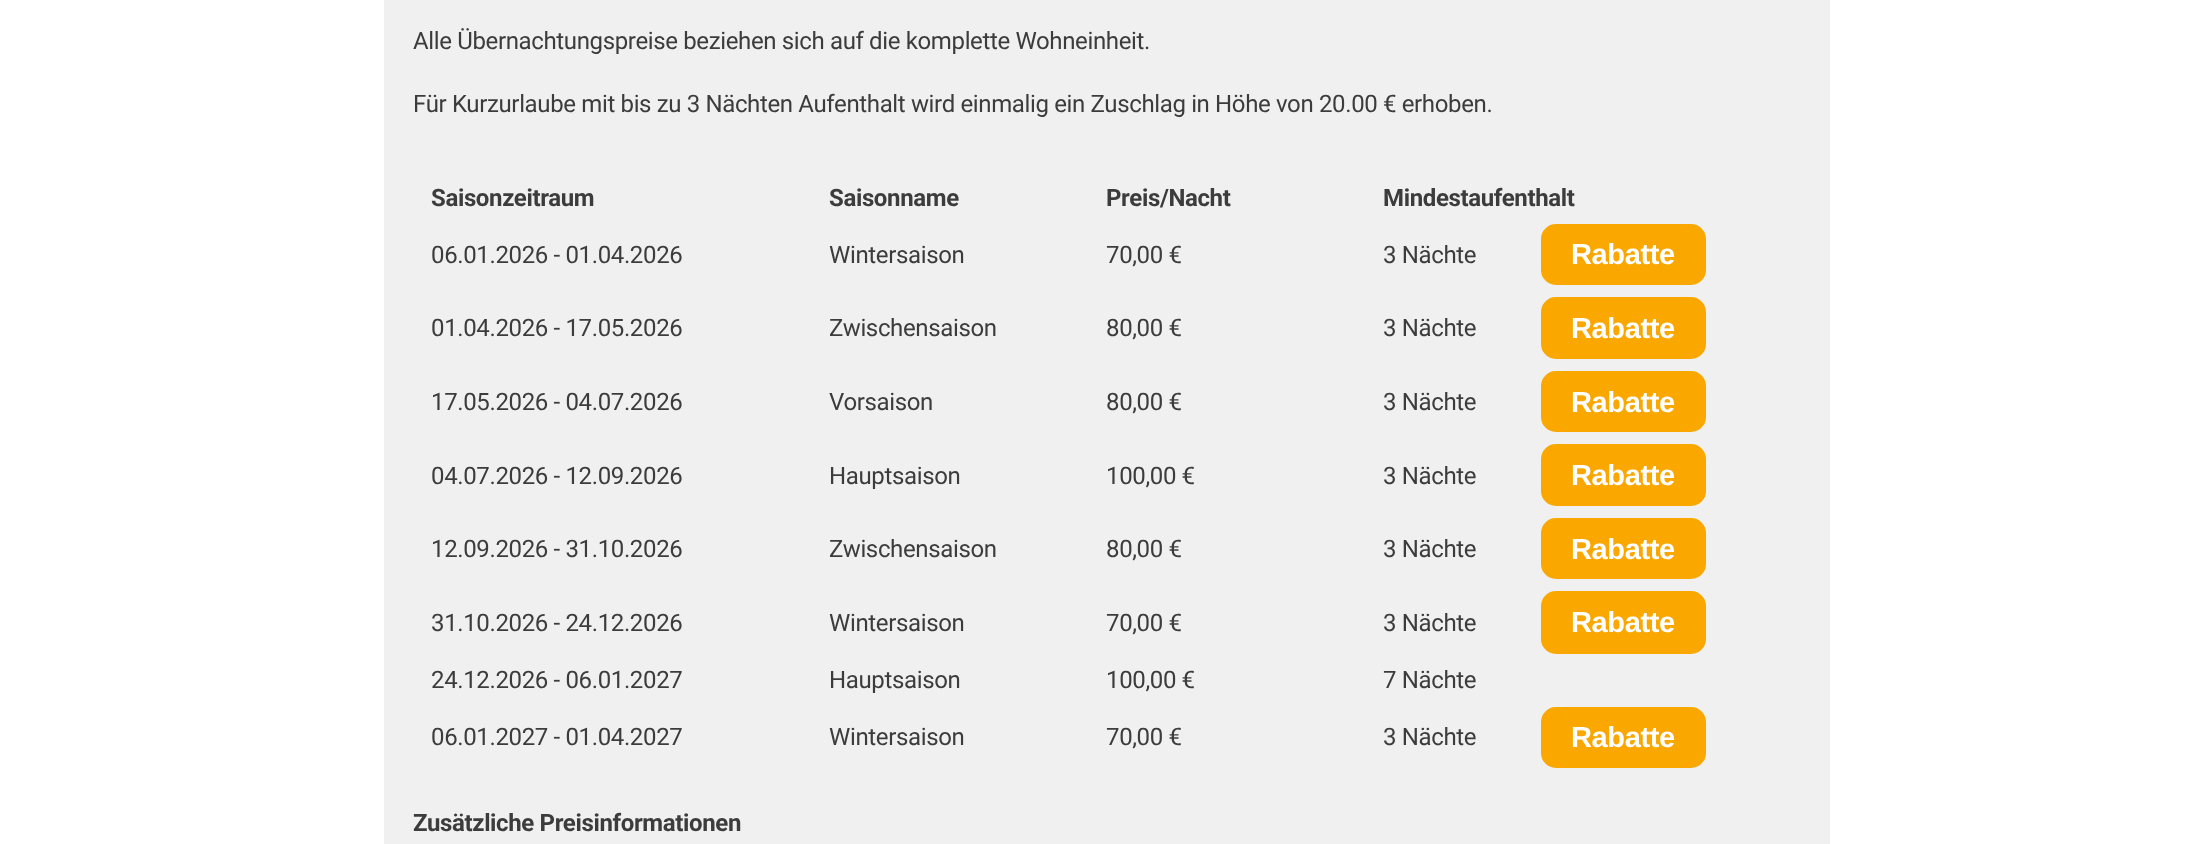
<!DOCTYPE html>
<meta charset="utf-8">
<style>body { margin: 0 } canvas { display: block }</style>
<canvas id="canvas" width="2212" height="844"></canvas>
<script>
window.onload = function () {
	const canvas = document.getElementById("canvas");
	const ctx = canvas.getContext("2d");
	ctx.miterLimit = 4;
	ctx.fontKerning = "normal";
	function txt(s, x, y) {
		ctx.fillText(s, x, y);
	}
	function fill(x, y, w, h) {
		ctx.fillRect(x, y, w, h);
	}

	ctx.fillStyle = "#FFFFFF";
	fill(0, 0, 2212, 844);
	ctx.fillStyle = "#F0F0F0";
	fill(384, 0, 1446, 844);
	ctx.fillStyle = "#FAA700";
	ctx.beginPath();
	ctx.roundRect(1542, 225, 163, 59, 14);
	ctx.fill();
	ctx.strokeStyle = "#FAA700";
	ctx.lineWidth = 2;
	ctx.stroke();
	ctx.beginPath();
	ctx.roundRect(1542, 298, 163, 60, 14);
	ctx.fill();
	ctx.stroke();
	ctx.beginPath();
	ctx.roundRect(1542, 372, 163, 59, 14);
	ctx.fill();
	ctx.stroke();
	ctx.beginPath();
	ctx.roundRect(1542, 445, 163, 60, 14);
	ctx.fill();
	ctx.stroke();
	ctx.beginPath();
	ctx.roundRect(1542, 519, 163, 59, 14);
	ctx.fill();
	ctx.stroke();
	ctx.beginPath();
	ctx.roundRect(1542, 592, 163, 61, 14);
	ctx.fill();
	ctx.stroke();
	ctx.beginPath();
	ctx.roundRect(1542, 708, 163, 59, 14);
	ctx.fill();
	ctx.stroke();
	ctx.letterSpacing = "-0.36px";
	ctx.font = "24px Roboto";
	ctx.fillStyle = "#3C3C3C";
	txt("Alle Übernachtungspreise beziehen sich auf die komplette Wohneinheit.", 413, 49);
	txt("Für Kurzurlaube mit bis zu 3 Nächten Aufenthalt wird einmalig ein Zuschlag in Höhe von 20.00 € erhoben.", 413, 112);
	ctx.font = "bold 24px Roboto";
	txt("Saisonzeitraum", 431, 206);
	txt("Saisonname", 829, 206);
	txt("Preis/Nacht", 1106, 206);
	txt("Mindestaufenthalt", 1383, 206);
	ctx.font = "24px Roboto";
	txt("06.01.2026 - 01.04.2026", 431, 263);
	txt("Wintersaison", 829, 263);
	txt("70,00 €", 1106, 263);
	txt("3 Nächte", 1383, 263);
	ctx.font = "bold 29px Liberation Sans";
	ctx.fillStyle = "#FFFFFF";
	txt("Rabatte", 1571, 264);
	ctx.font = "24px Roboto";
	ctx.fillStyle = "#3C3C3C";
	txt("01.04.2026 - 17.05.2026", 431, 336);
	txt("Zwischensaison", 829, 336);
	txt("80,00 €", 1106, 336);
	txt("3 Nächte", 1383, 336);
	ctx.font = "bold 29px Liberation Sans";
	ctx.fillStyle = "#FFFFFF";
	txt("Rabatte", 1571, 338);
	ctx.font = "24px Roboto";
	ctx.fillStyle = "#3C3C3C";
	txt("17.05.2026 - 04.07.2026", 431, 410);
	txt("Vorsaison", 829, 410);
	txt("80,00 €", 1106, 410);
	txt("3 Nächte", 1383, 410);
	ctx.font = "bold 29px Liberation Sans";
	ctx.fillStyle = "#FFFFFF";
	txt("Rabatte", 1571, 412);
	ctx.font = "24px Roboto";
	ctx.fillStyle = "#3C3C3C";
	txt("04.07.2026 - 12.09.2026", 431, 484);
	txt("Hauptsaison", 829, 484);
	txt("100,00 €", 1106, 484);
	txt("3 Nächte", 1383, 484);
	ctx.font = "bold 29px Liberation Sans";
	ctx.fillStyle = "#FFFFFF";
	txt("Rabatte", 1571, 485);
	ctx.font = "24px Roboto";
	ctx.fillStyle = "#3C3C3C";
	txt("12.09.2026 - 31.10.2026", 431, 557);
	txt("Zwischensaison", 829, 557);
	txt("80,00 €", 1106, 557);
	txt("3 Nächte", 1383, 557);
	ctx.font = "bold 29px Liberation Sans";
	ctx.fillStyle = "#FFFFFF";
	txt("Rabatte", 1571, 559);
	ctx.font = "24px Roboto";
	ctx.fillStyle = "#3C3C3C";
	txt("31.10.2026 - 24.12.2026", 431, 631);
	txt("Wintersaison", 829, 631);
	txt("70,00 €", 1106, 631);
	txt("3 Nächte", 1383, 631);
	ctx.font = "bold 29px Liberation Sans";
	ctx.fillStyle = "#FFFFFF";
	txt("Rabatte", 1571, 632);
	ctx.font = "24px Roboto";
	ctx.fillStyle = "#3C3C3C";
	txt("24.12.2026 - 06.01.2027", 431, 688);
	txt("Hauptsaison", 829, 688);
	txt("100,00 €", 1106, 688);
	txt("7 Nächte", 1383, 688);
	txt("06.01.2027 - 01.04.2027", 431, 745);
	txt("Wintersaison", 829, 745);
	txt("70,00 €", 1106, 745);
	txt("3 Nächte", 1383, 745);
	ctx.font = "bold 29px Liberation Sans";
	ctx.fillStyle = "#FFFFFF";
	txt("Rabatte", 1571, 747);
	ctx.font = "bold 24px Roboto";
	ctx.fillStyle = "#3C3C3C";
	txt("Zusätzliche Preisinformationen", 413, 831);
};
</script>
